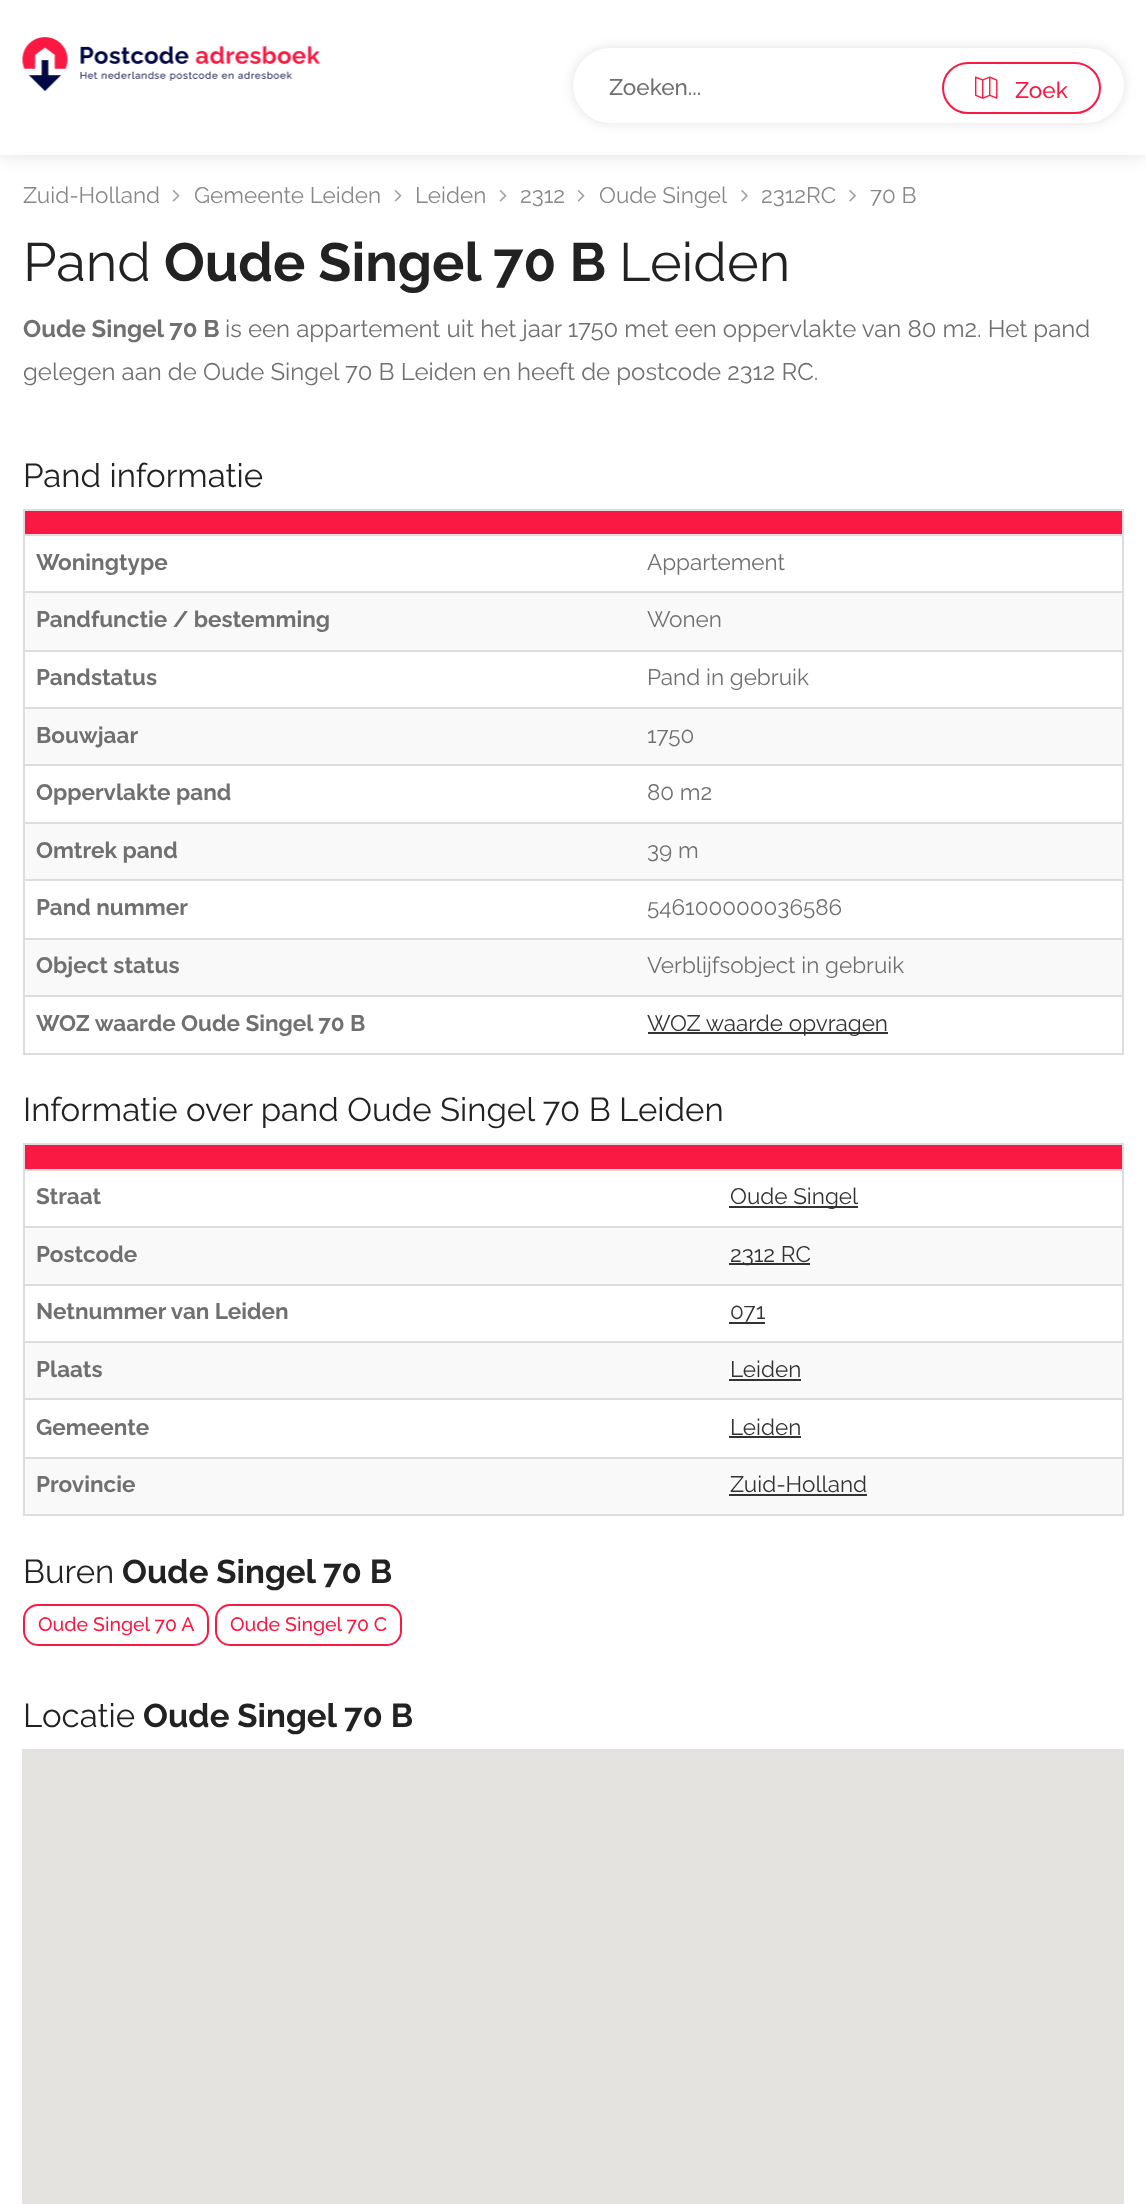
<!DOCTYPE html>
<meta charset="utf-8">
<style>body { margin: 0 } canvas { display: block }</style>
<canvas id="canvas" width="1146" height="2204"></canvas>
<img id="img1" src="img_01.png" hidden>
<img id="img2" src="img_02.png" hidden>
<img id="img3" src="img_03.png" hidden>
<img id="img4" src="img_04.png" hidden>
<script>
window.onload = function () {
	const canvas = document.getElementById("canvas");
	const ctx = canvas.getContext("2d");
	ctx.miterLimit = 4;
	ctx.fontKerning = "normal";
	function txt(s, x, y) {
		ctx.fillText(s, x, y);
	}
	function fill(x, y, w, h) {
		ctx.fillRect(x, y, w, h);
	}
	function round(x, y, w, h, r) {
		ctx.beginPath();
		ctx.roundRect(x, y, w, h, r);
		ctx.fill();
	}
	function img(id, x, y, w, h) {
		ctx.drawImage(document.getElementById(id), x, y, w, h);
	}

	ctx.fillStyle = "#FFFFFF";
	fill(0, 0, 1146, 2204);
	ctx.save();
	ctx.beginPath();
	ctx.moveTo(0, 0);
	ctx.lineTo(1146, 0);
	ctx.lineTo(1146, 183);
	ctx.lineTo(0, 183);
	ctx.closePath();
	ctx.moveTo(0, 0);
	ctx.lineTo(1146, 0);
	ctx.lineTo(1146, 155);
	ctx.lineTo(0, 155);
	ctx.closePath();
	ctx.clip("evenodd");
	ctx.fillStyle = "rgba(0, 0, 0, 0.12)";
	ctx.filter = "blur(9px)";
	ctx.beginPath();
	ctx.rect(0, 0, 1146, 155);
	ctx.fill();
	ctx.filter = "none";
	ctx.restore();
	img("img1", 22, 37, 299, 54);
	ctx.fillStyle = "rgba(0, 0, 0, 0.12)";
	ctx.filter = "blur(6px)";
	ctx.beginPath();
	ctx.roundRect(573, 48, 551, 75, 37.5);
	ctx.fill();
	ctx.filter = "none";
	ctx.fillStyle = "#FFFFFF";
	round(573, 48, 551, 75, 37.5);
	ctx.beginPath();
	ctx.roundRect(943, 63, 157, 50, 25);
	ctx.strokeStyle = "#F91942";
	ctx.lineWidth = 2;
	ctx.stroke();
	img("img2", 975, 76, 23, 23);
	img("img3", 172, 190, 8, 12);
	img("img3", 394, 190, 8, 12);
	img("img3", 499, 190, 8, 12);
	img("img3", 577, 190, 8, 12);
	img("img4", 741, 190, 7, 12);
	img("img4", 849, 190, 7, 12);
	ctx.fillStyle = "#DDDDDD";
	fill(23, 509, 1101, 2);
	fill(1122, 509, 2, 546);
	fill(23, 1053, 1101, 2);
	fill(23, 509, 2, 546);
	ctx.fillStyle = "#F91942";
	fill(25, 511, 1097, 23);
	ctx.fillStyle = "#DDDDDD";
	fill(23, 534, 1101, 2);
	ctx.fillStyle = "#F9F9F9";
	fill(25, 593, 1097, 57);
	ctx.fillStyle = "#DDDDDD";
	fill(23, 591, 1101, 2);
	fill(23, 650, 1101, 2);
	ctx.fillStyle = "#F9F9F9";
	fill(25, 709, 1097, 55);
	ctx.fillStyle = "#DDDDDD";
	fill(23, 707, 1101, 2);
	fill(23, 764, 1101, 2);
	ctx.fillStyle = "#F9F9F9";
	fill(25, 824, 1097, 55);
	ctx.fillStyle = "#DDDDDD";
	fill(23, 822, 1101, 2);
	fill(23, 879, 1101, 2);
	ctx.fillStyle = "#F9F9F9";
	fill(25, 940, 1097, 55);
	ctx.fillStyle = "#DDDDDD";
	fill(23, 938, 1101, 2);
	fill(23, 995, 1101, 2);
	ctx.fillStyle = "#333333";
	fill(648, 1032, 240, 2);
	ctx.fillStyle = "#DDDDDD";
	fill(23, 1143, 1101, 2);
	fill(1122, 1143, 2, 372);
	fill(23, 1514, 1101, 2);
	fill(23, 1143, 2, 372);
	ctx.fillStyle = "#F91942";
	fill(25, 1145, 1097, 24);
	ctx.fillStyle = "#DDDDDD";
	fill(23, 1169, 1101, 2);
	ctx.fillStyle = "#333333";
	fill(729, 1206, 129, 2);
	ctx.fillStyle = "#F9F9F9";
	fill(25, 1228, 1097, 56);
	ctx.fillStyle = "#DDDDDD";
	fill(23, 1226, 1101, 2);
	ctx.fillStyle = "#333333";
	fill(729, 1263, 81, 2);
	ctx.fillStyle = "#DDDDDD";
	fill(23, 1284, 1101, 2);
	ctx.fillStyle = "#333333";
	fill(729, 1322, 36, 2);
	ctx.fillStyle = "#F9F9F9";
	fill(25, 1343, 1097, 55);
	ctx.fillStyle = "#DDDDDD";
	fill(23, 1341, 1101, 2);
	ctx.fillStyle = "#333333";
	fill(729, 1379, 72, 2);
	ctx.fillStyle = "#DDDDDD";
	fill(23, 1398, 1101, 2);
	ctx.fillStyle = "#333333";
	fill(729, 1436, 72, 2);
	ctx.fillStyle = "#F9F9F9";
	fill(25, 1459, 1097, 55);
	ctx.fillStyle = "#DDDDDD";
	fill(23, 1457, 1101, 2);
	ctx.fillStyle = "#333333";
	fill(729, 1494, 138, 2);
	ctx.beginPath();
	ctx.roundRect(24, 1605, 184, 40, 14);
	ctx.stroke();
	ctx.beginPath();
	ctx.roundRect(216, 1605, 185, 40, 14);
	ctx.stroke();
	ctx.fillStyle = "#E5E3DF";
	fill(22, 1749, 1102, 455);
	ctx.font = "500 22.5px Raleway";
	ctx.fillStyle = "#707070";
	txt("Zoeken...", 609, 95);
	ctx.fillStyle = "#F91942";
	txt("Zoek", 1015, 98);
	ctx.font = "22.5px Raleway";
	ctx.fillStyle = "#888888";
	txt("Zuid-Holland", 23, 203);
	txt("Gemeente Leiden", 194, 203);
	txt("Leiden", 415, 203);
	txt("2312", 520, 203);
	txt("Oude Singel", 599, 203);
	txt("2312RC", 761, 203);
	txt("70 B", 870, 203);
	ctx.font = "54px Raleway";
	ctx.fillStyle = "#222222";
	txt("Pand", 23, 281);
	ctx.font = "bold 54px Raleway";
	txt("Oude Singel 70 B", 164, 281);
	ctx.font = "54px Raleway";
	txt("Leiden", 619, 281);
	ctx.font = "bold 24px Raleway";
	ctx.fillStyle = "#707070";
	txt("Oude Singel 70 B", 23, 337);
	ctx.font = "24px Raleway";
	txt("is een appartement uit het jaar 1750 met een oppervlakte van 80 m2. Het pand", 225, 337);
	txt("gelegen aan de Oude Singel 70 B Leiden en heeft de postcode 2312 RC.", 23, 380);
	ctx.font = "33px Raleway";
	ctx.fillStyle = "#222222";
	txt("Pand informatie", 23, 487);
	ctx.font = "bold 22.5px Raleway";
	ctx.fillStyle = "#707070";
	txt("Woningtype", 36, 570);
	ctx.font = "22.5px Raleway";
	txt("Appartement", 647, 570);
	ctx.font = "bold 22.5px Raleway";
	txt("Pandfunctie / bestemming", 36, 627);
	ctx.font = "22.5px Raleway";
	txt("Wonen", 647, 627);
	ctx.font = "bold 22.5px Raleway";
	txt("Pandstatus", 36, 685);
	ctx.font = "22.5px Raleway";
	txt("Pand in gebruik", 647, 685);
	ctx.font = "bold 22.5px Raleway";
	txt("Bouwjaar", 36, 743);
	ctx.font = "22.5px Raleway";
	txt("1750", 647, 743);
	ctx.font = "bold 22.5px Raleway";
	txt("Oppervlakte pand", 36, 800);
	ctx.font = "22.5px Raleway";
	txt("80 m2", 647, 800);
	ctx.font = "bold 22.5px Raleway";
	txt("Omtrek pand", 36, 858);
	ctx.font = "22.5px Raleway";
	txt("39 m", 647, 858);
	ctx.font = "bold 22.5px Raleway";
	txt("Pand nummer", 36, 915);
	ctx.font = "22.5px Raleway";
	txt("546100000036586", 647, 915);
	ctx.font = "bold 22.5px Raleway";
	txt("Object status", 36, 973);
	ctx.font = "22.5px Raleway";
	txt("Verblijfsobject in gebruik", 647, 973);
	ctx.font = "bold 22.5px Raleway";
	txt("WOZ waarde Oude Singel 70 B", 36, 1031);
	ctx.font = "22.5px Raleway";
	ctx.fillStyle = "#333333";
	txt("WOZ waarde opvragen", 647, 1031);
	ctx.font = "33px Raleway";
	ctx.fillStyle = "#222222";
	txt("Informatie over pand Oude Singel 70 B Leiden", 23, 1121);
	ctx.font = "bold 22.5px Raleway";
	ctx.fillStyle = "#707070";
	txt("Straat", 36, 1204);
	ctx.font = "22.5px Raleway";
	ctx.fillStyle = "#333333";
	txt("Oude Singel", 730, 1204);
	ctx.font = "bold 22.5px Raleway";
	ctx.fillStyle = "#707070";
	txt("Postcode", 36, 1262);
	ctx.font = "22.5px Raleway";
	ctx.fillStyle = "#333333";
	txt("2312 RC", 730, 1262);
	ctx.font = "bold 22.5px Raleway";
	ctx.fillStyle = "#707070";
	txt("Netnummer van Leiden", 36, 1319);
	ctx.font = "22.5px Raleway";
	ctx.fillStyle = "#333333";
	txt("071", 730, 1319);
	ctx.font = "bold 22.5px Raleway";
	ctx.fillStyle = "#707070";
	txt("Plaats", 36, 1377);
	ctx.font = "22.5px Raleway";
	ctx.fillStyle = "#333333";
	txt("Leiden", 730, 1377);
	ctx.font = "bold 22.5px Raleway";
	ctx.fillStyle = "#707070";
	txt("Gemeente", 36, 1435);
	ctx.font = "22.5px Raleway";
	ctx.fillStyle = "#333333";
	txt("Leiden", 730, 1435);
	ctx.font = "bold 22.5px Raleway";
	ctx.fillStyle = "#707070";
	txt("Provincie", 36, 1492);
	ctx.font = "22.5px Raleway";
	ctx.fillStyle = "#333333";
	txt("Zuid-Holland", 730, 1492);
	ctx.font = "33px Raleway";
	ctx.fillStyle = "#222222";
	txt("Buren", 23, 1583);
	ctx.font = "bold 33px Raleway";
	txt("Oude Singel 70 B", 122, 1583);
	ctx.font = "500 19.5px Raleway";
	ctx.fillStyle = "#F91942";
	txt("Oude Singel 70 A", 38, 1631);
	txt("Oude Singel 70 C", 230, 1631);
	ctx.font = "33px Raleway";
	ctx.fillStyle = "#222222";
	txt("Locatie", 23, 1727);
	ctx.font = "bold 33px Raleway";
	txt("Oude Singel 70 B", 143, 1727);
};
</script>
